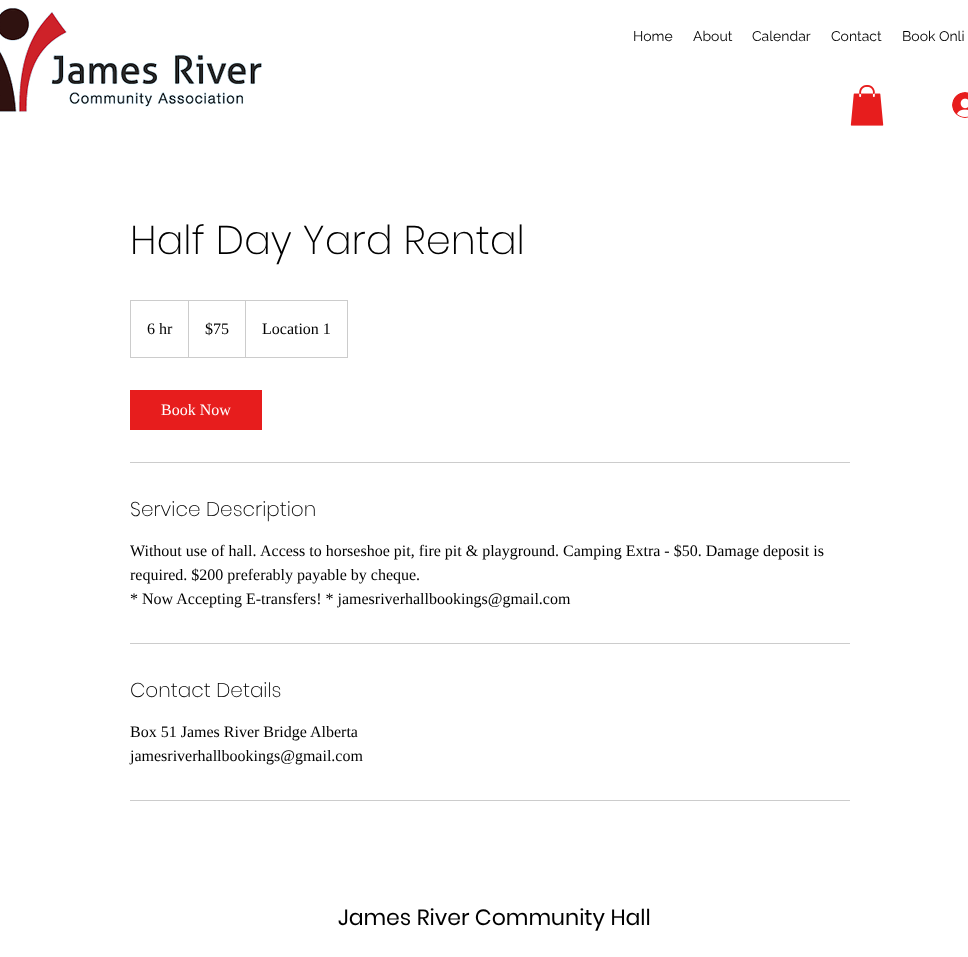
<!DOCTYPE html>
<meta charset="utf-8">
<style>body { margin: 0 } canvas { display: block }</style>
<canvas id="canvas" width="968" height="957"></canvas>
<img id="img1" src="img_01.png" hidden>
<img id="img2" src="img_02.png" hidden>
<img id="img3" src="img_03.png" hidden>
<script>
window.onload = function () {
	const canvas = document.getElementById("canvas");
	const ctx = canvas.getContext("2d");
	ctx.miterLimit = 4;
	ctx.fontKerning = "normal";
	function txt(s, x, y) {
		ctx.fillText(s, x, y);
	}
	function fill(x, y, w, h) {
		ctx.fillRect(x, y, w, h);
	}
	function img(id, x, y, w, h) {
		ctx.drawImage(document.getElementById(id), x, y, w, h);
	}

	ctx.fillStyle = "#FFFFFF";
	fill(0, 0, 968, 957);
	img("img1", 0, 7, 262, 106);
	img("img2", 850, 85, 34, 41);
	img("img3", 952, 92, 16, 26);
	ctx.strokeStyle = "#CCCCCC";
	ctx.strokeRect(130.5, 300.5, 217, 57);
	ctx.fillStyle = "#CCCCCC";
	ctx.beginPath();
	ctx.moveTo(188, 357);
	ctx.lineTo(188, 300);
	ctx.lineTo(189, 301);
	ctx.lineTo(189, 357);
	ctx.closePath();
	ctx.fill();
	ctx.beginPath();
	ctx.moveTo(245, 357);
	ctx.lineTo(245, 300);
	ctx.lineTo(246, 301);
	ctx.lineTo(246, 357);
	ctx.closePath();
	ctx.fill();
	ctx.fillStyle = "#E71D1D";
	fill(130, 390, 132, 40);
	ctx.fillStyle = "#CCCCCC";
	fill(130, 462, 720, 1);
	fill(130, 643, 720, 1);
	fill(130, 800, 720, 1);
	ctx.font = "14px Raleway";
	ctx.fillStyle = "#000000";
	txt("Home", 633, 41);
	txt("About", 693, 41);
	txt("Calendar", 752, 41);
	txt("Contact", 831, 41);
	txt("Book Onli", 902, 41);
	ctx.font = "200 40px Poppins";
	txt("Half Day Yard Rental", 130, 254);
	ctx.font = "16px Liberation Serif";
	txt("6 hr", 147, 334);
	txt("$75", 205, 334);
	txt("Location 1", 262, 334);
	ctx.fillStyle = "#FFFFFF";
	txt("Book Now", 161, 415);
	ctx.font = "200 20px Poppins";
	ctx.fillStyle = "#000000";
	txt("Service Description", 130, 516);
	ctx.font = "16px Liberation Serif";
	txt("Without use of hall.", 130, 556);
	txt("Access to horseshoe pit, fire pit & playground. Camping Extra - $50. Damage deposit is", 260, 556);
	txt("required. $200 preferably payable by cheque.", 130, 580);
	txt("* Now Accepting E-transfers! * jamesriverhallbookings@gmail.com", 130, 604);
	ctx.font = "200 20px Poppins";
	txt("Contact Details", 130, 697);
	ctx.font = "16px Liberation Serif";
	txt("Box 51 James River Bridge Alberta", 130, 737);
	txt("jamesriverhallbookings@gmail.com", 130, 761);
	ctx.font = "22px Poppins";
	txt("James River Community Hall", 338, 925);
};
</script>
